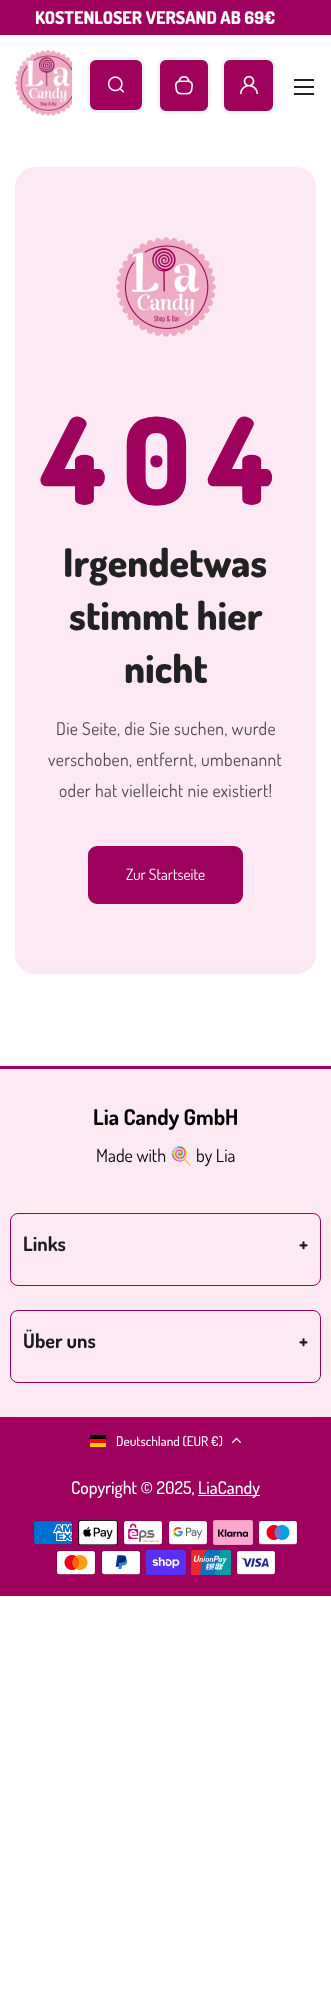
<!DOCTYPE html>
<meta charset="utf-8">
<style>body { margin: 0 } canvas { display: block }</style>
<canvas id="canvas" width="331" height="2007"></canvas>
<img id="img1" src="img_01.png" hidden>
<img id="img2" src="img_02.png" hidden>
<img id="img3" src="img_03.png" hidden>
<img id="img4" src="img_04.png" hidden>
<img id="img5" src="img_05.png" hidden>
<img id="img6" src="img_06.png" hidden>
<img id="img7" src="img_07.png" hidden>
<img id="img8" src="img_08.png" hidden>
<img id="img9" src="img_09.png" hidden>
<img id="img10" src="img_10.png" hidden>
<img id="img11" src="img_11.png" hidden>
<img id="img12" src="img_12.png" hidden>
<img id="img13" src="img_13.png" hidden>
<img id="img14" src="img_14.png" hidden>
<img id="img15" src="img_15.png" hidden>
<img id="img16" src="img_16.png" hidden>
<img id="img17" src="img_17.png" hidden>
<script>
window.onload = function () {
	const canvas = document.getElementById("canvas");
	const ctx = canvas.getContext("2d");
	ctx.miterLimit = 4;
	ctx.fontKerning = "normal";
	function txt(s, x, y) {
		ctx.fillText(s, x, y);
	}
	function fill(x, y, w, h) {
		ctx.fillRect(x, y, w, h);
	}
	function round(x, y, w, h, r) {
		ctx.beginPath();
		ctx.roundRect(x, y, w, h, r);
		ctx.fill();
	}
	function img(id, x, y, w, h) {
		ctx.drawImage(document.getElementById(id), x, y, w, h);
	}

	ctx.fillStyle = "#FFFFFF";
	fill(0, 0, 331, 2007);
	ctx.fillStyle = "#9E005D";
	fill(0, 0, 331, 35);
	img("img1", 15, 50, 57, 66);
	ctx.fillStyle = "#222222";
	fill(294, 79, 20, 2);
	fill(294, 93, 20, 2);
	fill(294, 86, 20, 2);
	ctx.fillStyle = "#9E005C";
	ctx.beginPath();
	ctx.roundRect(88.5, 58.5, 55, 53, 7.5);
	ctx.fill();
	ctx.strokeStyle = "#F4F4F4";
	ctx.lineWidth = 3;
	ctx.stroke();
	img("img2", 107, 76, 17, 17);
	ctx.beginPath();
	ctx.roundRect(158.5, 58.5, 51, 54, 7.5);
	ctx.fill();
	ctx.stroke();
	img("img3", 174, 76, 19, 19);
	ctx.beginPath();
	ctx.roundRect(222.5, 58.5, 52, 54, 7.5);
	ctx.fill();
	ctx.stroke();
	img("img4", 239, 75, 20, 20);
	ctx.fillStyle = "#FDE9F3";
	round(15, 167, 301, 807, 20);
	img("img5", 116, 237, 100, 100);
	ctx.fillStyle = "#9E015C";
	ctx.beginPath();
	ctx.roundRect(89.5, 847.5, 152, 55, 7.5);
	ctx.fill();
	ctx.strokeStyle = "#9E015C";
	ctx.stroke();
	ctx.fillStyle = "#FDE9F2";
	fill(0, 1069, 331, 348);
	ctx.fillStyle = "#9E015D";
	fill(0, 1066, 331, 3);
	ctx.beginPath();
	ctx.roundRect(10.5, 1213.5, 310, 72, 7.5);
	ctx.strokeStyle = "#9E015D";
	ctx.lineWidth = 1;
	ctx.stroke();
	ctx.beginPath();
	ctx.roundRect(10.5, 1310.5, 310, 72, 7.5);
	ctx.stroke();
	ctx.fillStyle = "#9E005D";
	fill(0, 1417, 331, 179);
	ctx.fillStyle = "#A60864";
	fill(15, 1417, 301, 1);
	ctx.fillStyle = "#000000";
	fill(90, 1435, 16, 4);
	ctx.fillStyle = "#FF0000";
	fill(90, 1439, 16, 4);
	ctx.fillStyle = "#FFCC00";
	fill(90, 1443, 16, 4);
	img("img6", 232, 1438, 9, 5);
	ctx.fillStyle = "#FFFFFF";
	fill(198, 1495, 62, 1);
	img("img7", 33, 1520, 40, 25);
	img("img8", 78, 1520, 40, 25);
	img("img9", 123, 1520, 40, 25);
	img("img10", 168, 1520, 40, 25);
	img("img11", 213, 1520, 40, 25);
	img("img12", 258, 1520, 40, 25);
	img("img13", 56, 1550, 40, 25);
	img("img14", 101, 1550, 40, 25);
	img("img15", 146, 1550, 40, 25);
	img("img16", 191, 1550, 40, 25);
	img("img17", 236, 1550, 40, 25);
	ctx.font = "800 17.6px Dosis";
	txt("KOSTENLOSER VERSAND AB 69€", 35, 24);
	ctx.letterSpacing = "17.5px";
	ctx.font = "800 121px Dosis";
	ctx.fillStyle = "#9E015C";
	txt("404", 41, 505);
	ctx.letterSpacing = "0px";
	ctx.font = "800 39.5px Dosis";
	ctx.fillStyle = "#222222";
	txt("Irgendetwas", 63, 577);
	txt("stimmt hier", 69, 630);
	txt("nicht", 124, 683);
	ctx.letterSpacing = "0.35px";
	ctx.font = "17.6px Dosis";
	ctx.fillStyle = "#4E4A4C";
	txt("Die Seite, die Sie suchen, wurde", 56, 735);
	txt("verschoben, entfernt, umbenannt", 48, 766);
	txt("oder hat vielleicht nie existiert!", 59, 797);
	ctx.letterSpacing = "0px";
	ctx.font = "15.5px Dosis";
	ctx.fillStyle = "#FFFFFF";
	txt("Zur Startseite", 126, 880);
	ctx.font = "bold 22px Dosis";
	ctx.fillStyle = "#000000";
	txt("Lia Candy GmbH", 93, 1125);
	ctx.font = "18px Dosis";
	txt("Made with", 96, 1162);
	ctx.font = "18px Noto Color Emoji";
	txt("🍭", 170, 1162);
	ctx.font = "18px Dosis";
	txt("by Lia", 196, 1162);
	ctx.font = "bold 20px Dosis";
	ctx.fillStyle = "#1C1B1F";
	txt("Links", 23, 1251);
	txt("+", 299, 1251);
	txt("Über uns", 23, 1348);
	txt("+", 299, 1348);
	ctx.font = "500 13.25px Dosis";
	ctx.fillStyle = "#FFFFFF";
	txt("Deutschland (EUR €)", 116, 1446);
	ctx.font = "500 17.6px Dosis";
	txt("Copyright © 2025,", 71, 1494);
	txt("LiaCandy", 198, 1494);
};
</script>
